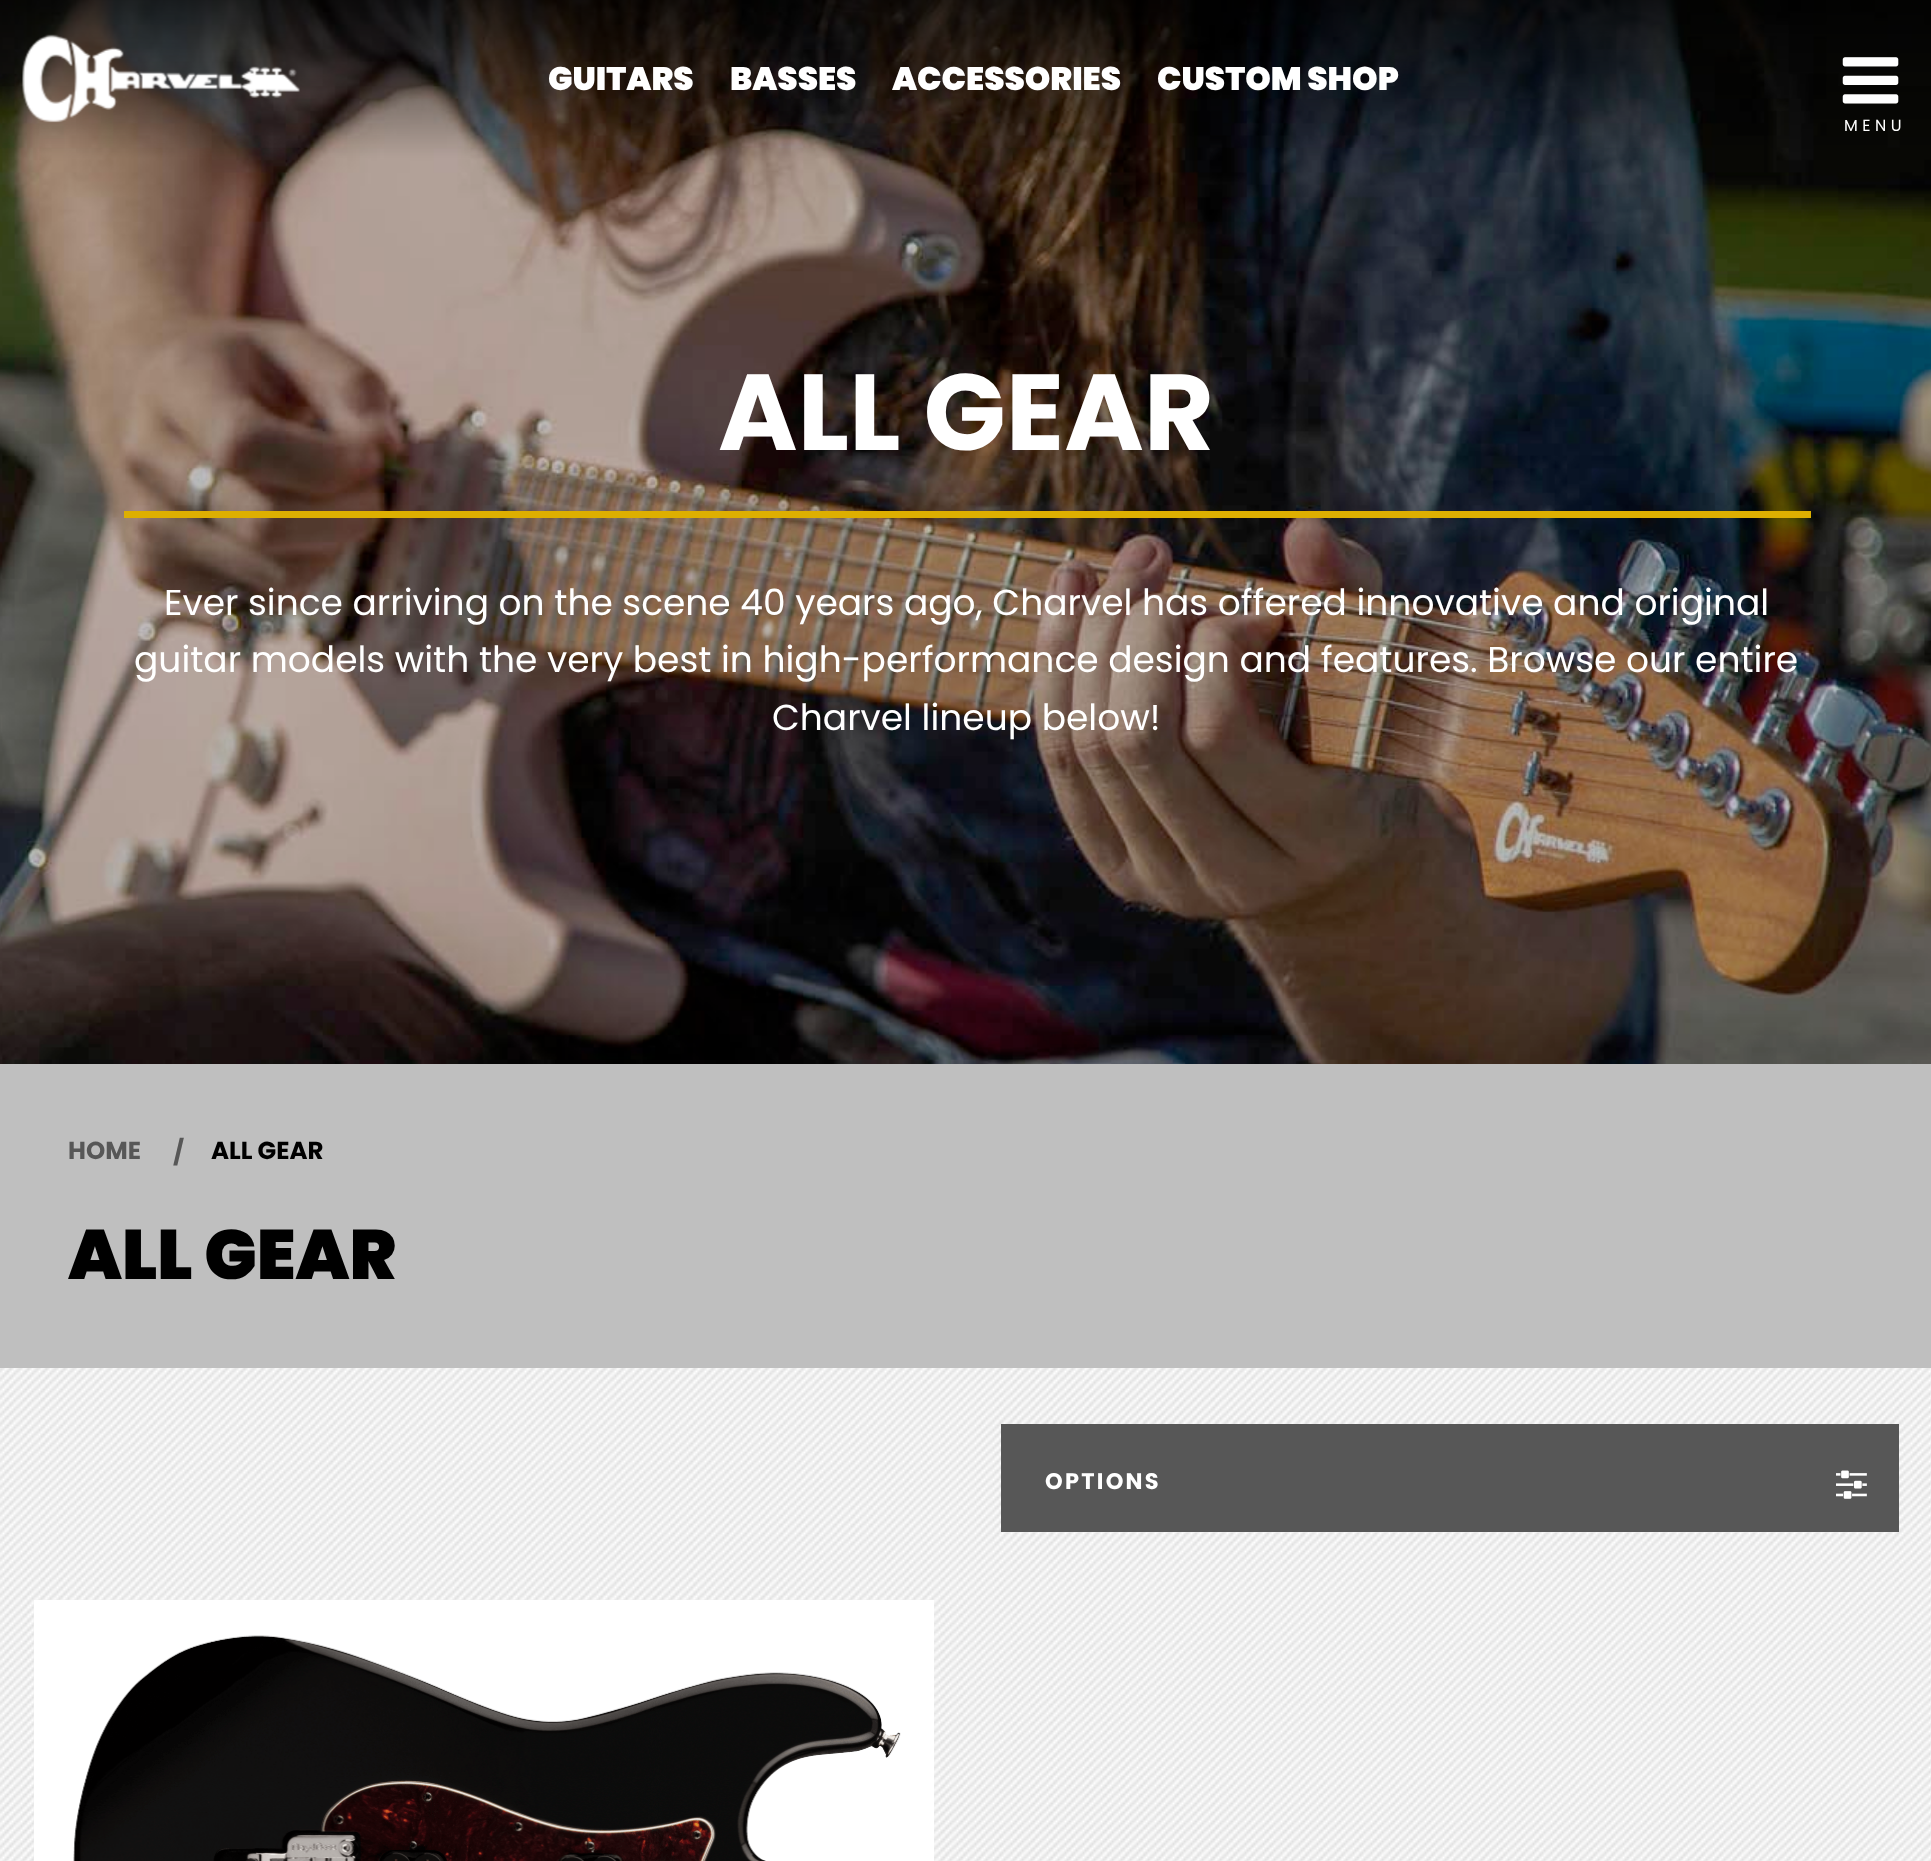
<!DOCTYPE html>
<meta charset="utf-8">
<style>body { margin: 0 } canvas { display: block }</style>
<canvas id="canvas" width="1931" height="1861"></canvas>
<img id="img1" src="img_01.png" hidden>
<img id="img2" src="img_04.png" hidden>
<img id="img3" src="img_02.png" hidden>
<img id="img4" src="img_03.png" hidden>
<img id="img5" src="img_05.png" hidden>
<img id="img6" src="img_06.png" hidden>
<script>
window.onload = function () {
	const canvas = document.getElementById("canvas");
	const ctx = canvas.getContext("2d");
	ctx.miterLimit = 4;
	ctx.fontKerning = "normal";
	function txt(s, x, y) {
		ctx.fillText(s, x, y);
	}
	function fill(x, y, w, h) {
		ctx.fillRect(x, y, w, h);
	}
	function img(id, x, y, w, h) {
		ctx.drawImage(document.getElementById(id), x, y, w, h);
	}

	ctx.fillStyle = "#FFFFFF";
	fill(0, 0, 1931, 1861);
	img("img1", 0, 1368, 1931, 493);
	img("img2", 0, 0, 1931, 1064);
	img("img3", 22, 34, 278, 89);
	img("img4", 1842, 57, 57, 47);
	ctx.fillStyle = "#DDAF01";
	fill(124, 511, 1687, 7);
	ctx.fillStyle = "#BFBFBF";
	fill(0, 1064, 1931, 304);
	ctx.fillStyle = "#575757";
	fill(1001, 1424, 898, 108);
	img("img5", 1836, 1470, 31, 29);
	ctx.fillStyle = "#FFFFFF";
	fill(34, 1600, 900, 261);
	img("img6", 73, 1635, 828, 226);
	ctx.font = "900 32.5px Poppins";
	txt("GUITARS", 548, 90);
	txt("BASSES", 730, 90);
	txt("ACCESSORIES", 892, 90);
	txt("CUSTOM SHOP", 1157, 90);
	ctx.letterSpacing = "4.5px";
	ctx.font = "16px Poppins";
	txt("MENU", 1844, 131);
	ctx.letterSpacing = "0px";
	ctx.font = "bold 108px Poppins";
	txt("ALL GEAR", 718, 450);
	ctx.font = "36px Poppins";
	txt("Ever since arriving on the scene 40 years ago, Charvel has offered innovative and original", 164, 615);
	txt("guitar models with the very best in high-performance design and features. Browse our entire", 134, 672);
	txt("Charvel lineup below!", 772, 730);
	ctx.font = "bold 24.5px Poppins";
	ctx.fillStyle = "#575757";
	txt("HOME", 68, 1159);
	txt("/", 173, 1161);
	ctx.fillStyle = "#000000";
	txt("ALL GEAR", 211, 1159);
	ctx.font = "900 69.75px Poppins";
	txt("ALL GEAR", 68, 1279);
	ctx.letterSpacing = "2.25px";
	ctx.font = "bold 22.5px Poppins";
	ctx.fillStyle = "#FFFFFF";
	txt("OPTIONS", 1045, 1489);
};
</script>
